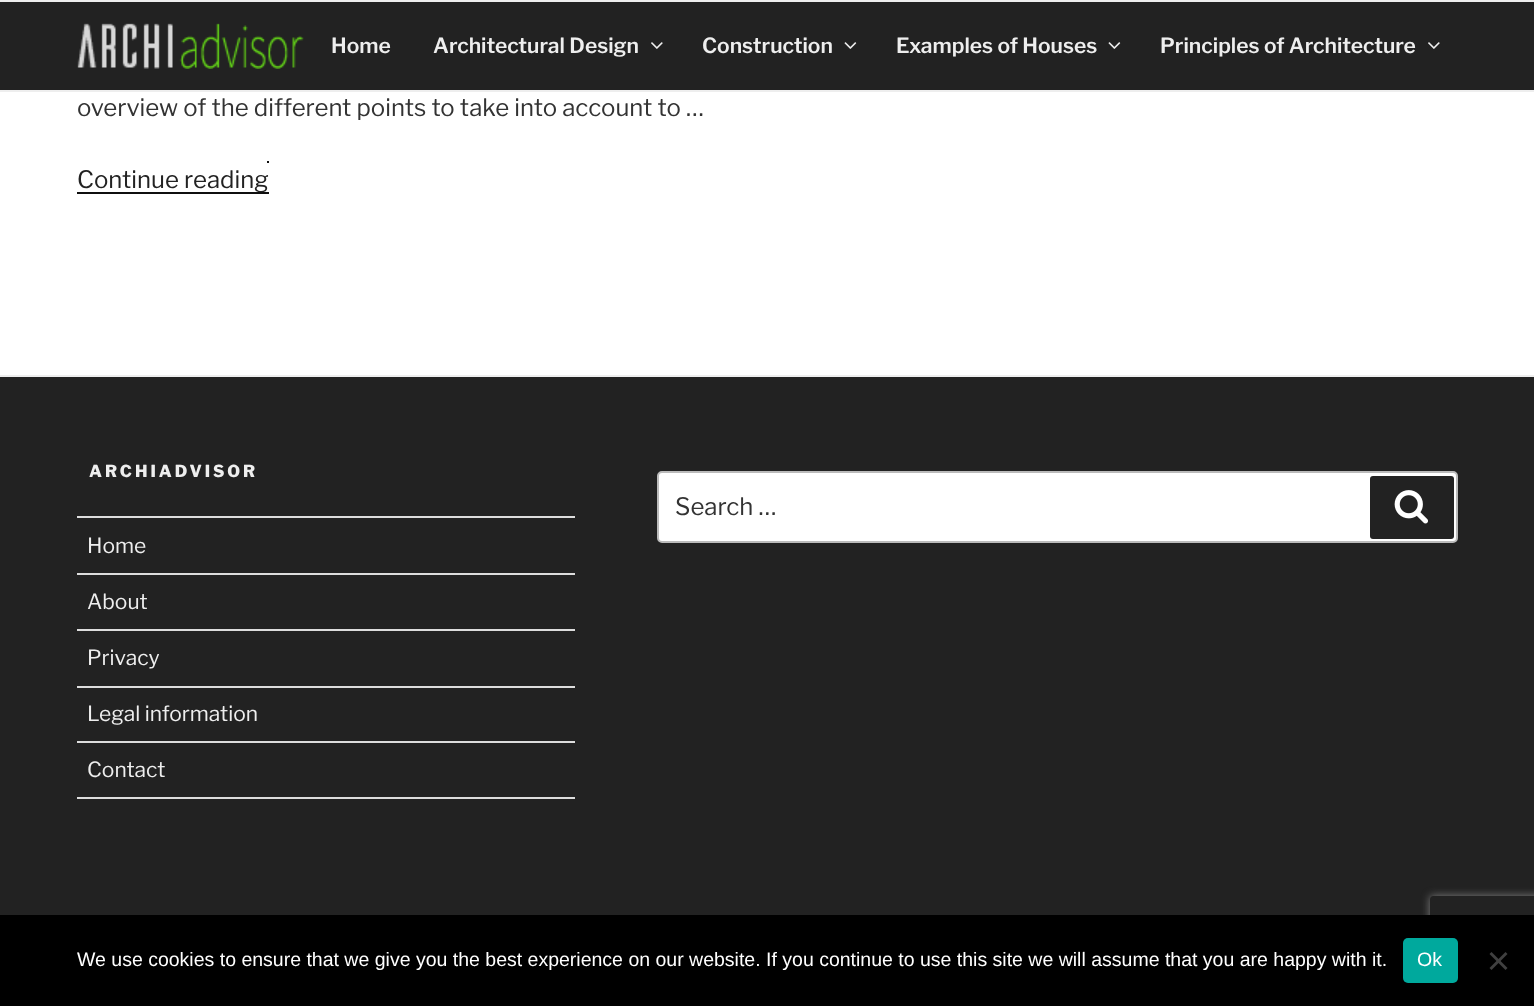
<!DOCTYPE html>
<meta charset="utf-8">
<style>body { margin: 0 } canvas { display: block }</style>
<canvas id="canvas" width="1534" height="1006"></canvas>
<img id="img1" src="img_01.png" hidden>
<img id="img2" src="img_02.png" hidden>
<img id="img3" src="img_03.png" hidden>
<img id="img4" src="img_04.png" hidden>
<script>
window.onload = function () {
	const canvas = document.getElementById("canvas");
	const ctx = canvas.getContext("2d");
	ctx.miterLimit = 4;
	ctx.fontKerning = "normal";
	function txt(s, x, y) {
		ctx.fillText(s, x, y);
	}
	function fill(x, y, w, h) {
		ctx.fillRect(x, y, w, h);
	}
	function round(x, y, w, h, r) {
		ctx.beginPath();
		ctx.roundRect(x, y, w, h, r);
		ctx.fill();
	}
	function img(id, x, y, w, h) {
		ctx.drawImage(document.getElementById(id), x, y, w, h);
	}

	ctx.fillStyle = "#FFFFFF";
	fill(0, 0, 1534, 1006);
	ctx.fillStyle = "#222222";
	fill(0, 2, 1534, 88);
	ctx.fillStyle = "#EEEEEE";
	fill(0, 0, 1534, 2);
	fill(0, 90, 1534, 2);
	img("img1", 77, 23, 227, 46);
	img("img2", 651, 42, 12, 7);
	img("img3", 844, 42, 13, 7);
	img("img3", 1108, 42, 13, 7);
	img("img2", 1428, 42, 12, 7);
	ctx.fillStyle = "#0F0F0F";
	fill(77, 192, 192, 2);
	fill(267, 161, 2, 2);
	ctx.fillStyle = "#222222";
	fill(0, 377, 1534, 538);
	ctx.fillStyle = "#EEEEEE";
	fill(0, 375, 1534, 2);
	ctx.fillStyle = "#DDDDDD";
	fill(77, 516, 498, 2);
	fill(77, 573, 498, 2);
	fill(77, 629, 498, 2);
	fill(77, 686, 498, 2);
	fill(77, 741, 498, 2);
	fill(77, 797, 498, 2);
	ctx.fillStyle = "#FFFFFF";
	ctx.beginPath();
	ctx.roundRect(658, 472, 799, 70, 4);
	ctx.fill();
	ctx.strokeStyle = "#BBBBBB";
	ctx.lineWidth = 2;
	ctx.stroke();
	ctx.fillStyle = "#222222";
	round(1370, 476, 84, 63, 3);
	img("img4", 1394, 490, 34, 34);
	ctx.save();
	ctx.beginPath();
	ctx.moveTo(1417, 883);
	ctx.lineTo(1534, 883);
	ctx.lineTo(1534, 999);
	ctx.lineTo(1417, 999);
	ctx.closePath();
	ctx.moveTo(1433, 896);
	ctx.lineTo(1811, 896);
	ctx.bezierCurveTo(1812.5, 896, 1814, 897.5, 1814, 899);
	ctx.lineTo(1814, 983);
	ctx.bezierCurveTo(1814, 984.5, 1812.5, 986, 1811, 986);
	ctx.lineTo(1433, 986);
	ctx.bezierCurveTo(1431.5, 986, 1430, 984.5, 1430, 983);
	ctx.lineTo(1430, 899);
	ctx.bezierCurveTo(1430, 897.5, 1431.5, 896, 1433, 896);
	ctx.closePath();
	ctx.clip("evenodd");
	ctx.fillStyle = "#808080";
	ctx.filter = "blur(4px)";
	ctx.beginPath();
	ctx.roundRect(1430, 896, 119, 90, 3);
	ctx.fill();
	ctx.filter = "none";
	ctx.restore();
	ctx.fillStyle = "#000000";
	fill(0, 915, 1534, 91);
	ctx.fillStyle = "#00A99D";
	round(1403, 938, 55, 45, 5);
	ctx.fillStyle = "#404040";
	ctx.beginPath();
	ctx.moveTo(1505.5, 952);
	ctx.lineTo(1507.5, 954);
	ctx.lineTo(1491.5, 970);
	ctx.lineTo(1489.5, 968);
	ctx.closePath();
	ctx.fill();
	ctx.beginPath();
	ctx.moveTo(1489.5, 954);
	ctx.lineTo(1491.5, 952);
	ctx.lineTo(1507.5, 968);
	ctx.lineTo(1505.5, 970);
	ctx.closePath();
	ctx.fill();
	ctx.font = "100 21px 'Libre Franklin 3'";
	ctx.fillStyle = "#EEEEEE";
	txt("Home", 331, 53);
	txt("Architectural Design", 433, 53);
	txt("Construction", 702, 53);
	txt("Examples of Houses", 896, 53);
	txt("Principles of Architecture", 1160, 53);
	ctx.font = "100 24px Libre Franklin";
	ctx.fillStyle = "#333333";
	txt("overview of the different points to take into account to …", 77, 116);
	ctx.fillStyle = "#222222";
	txt("Continue reading", 77, 188);
	ctx.letterSpacing = "3px";
	ctx.font = "100 16.5px 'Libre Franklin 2'";
	ctx.fillStyle = "#EEEEEE";
	txt("ARCHIADVISOR", 89, 477);
	ctx.letterSpacing = "0px";
	ctx.font = "100 21px Libre Franklin";
	txt("Home", 87, 553);
	txt("About", 87, 609);
	txt("Privacy", 87, 665);
	txt("Legal information", 87, 721);
	txt("Contact", 87, 777);
	ctx.font = "100 24px Libre Franklin";
	ctx.fillStyle = "#333333";
	txt("Search …", 675, 515);
	ctx.font = "19.5px Liberation Sans";
	ctx.fillStyle = "#FFFFFF";
	txt("We use cookies to ensure that we give you the best experience on our website. If you continue to use this site we will assume that you are happy with it.", 77, 966);
	txt("Ok", 1417, 966);
};
</script>
